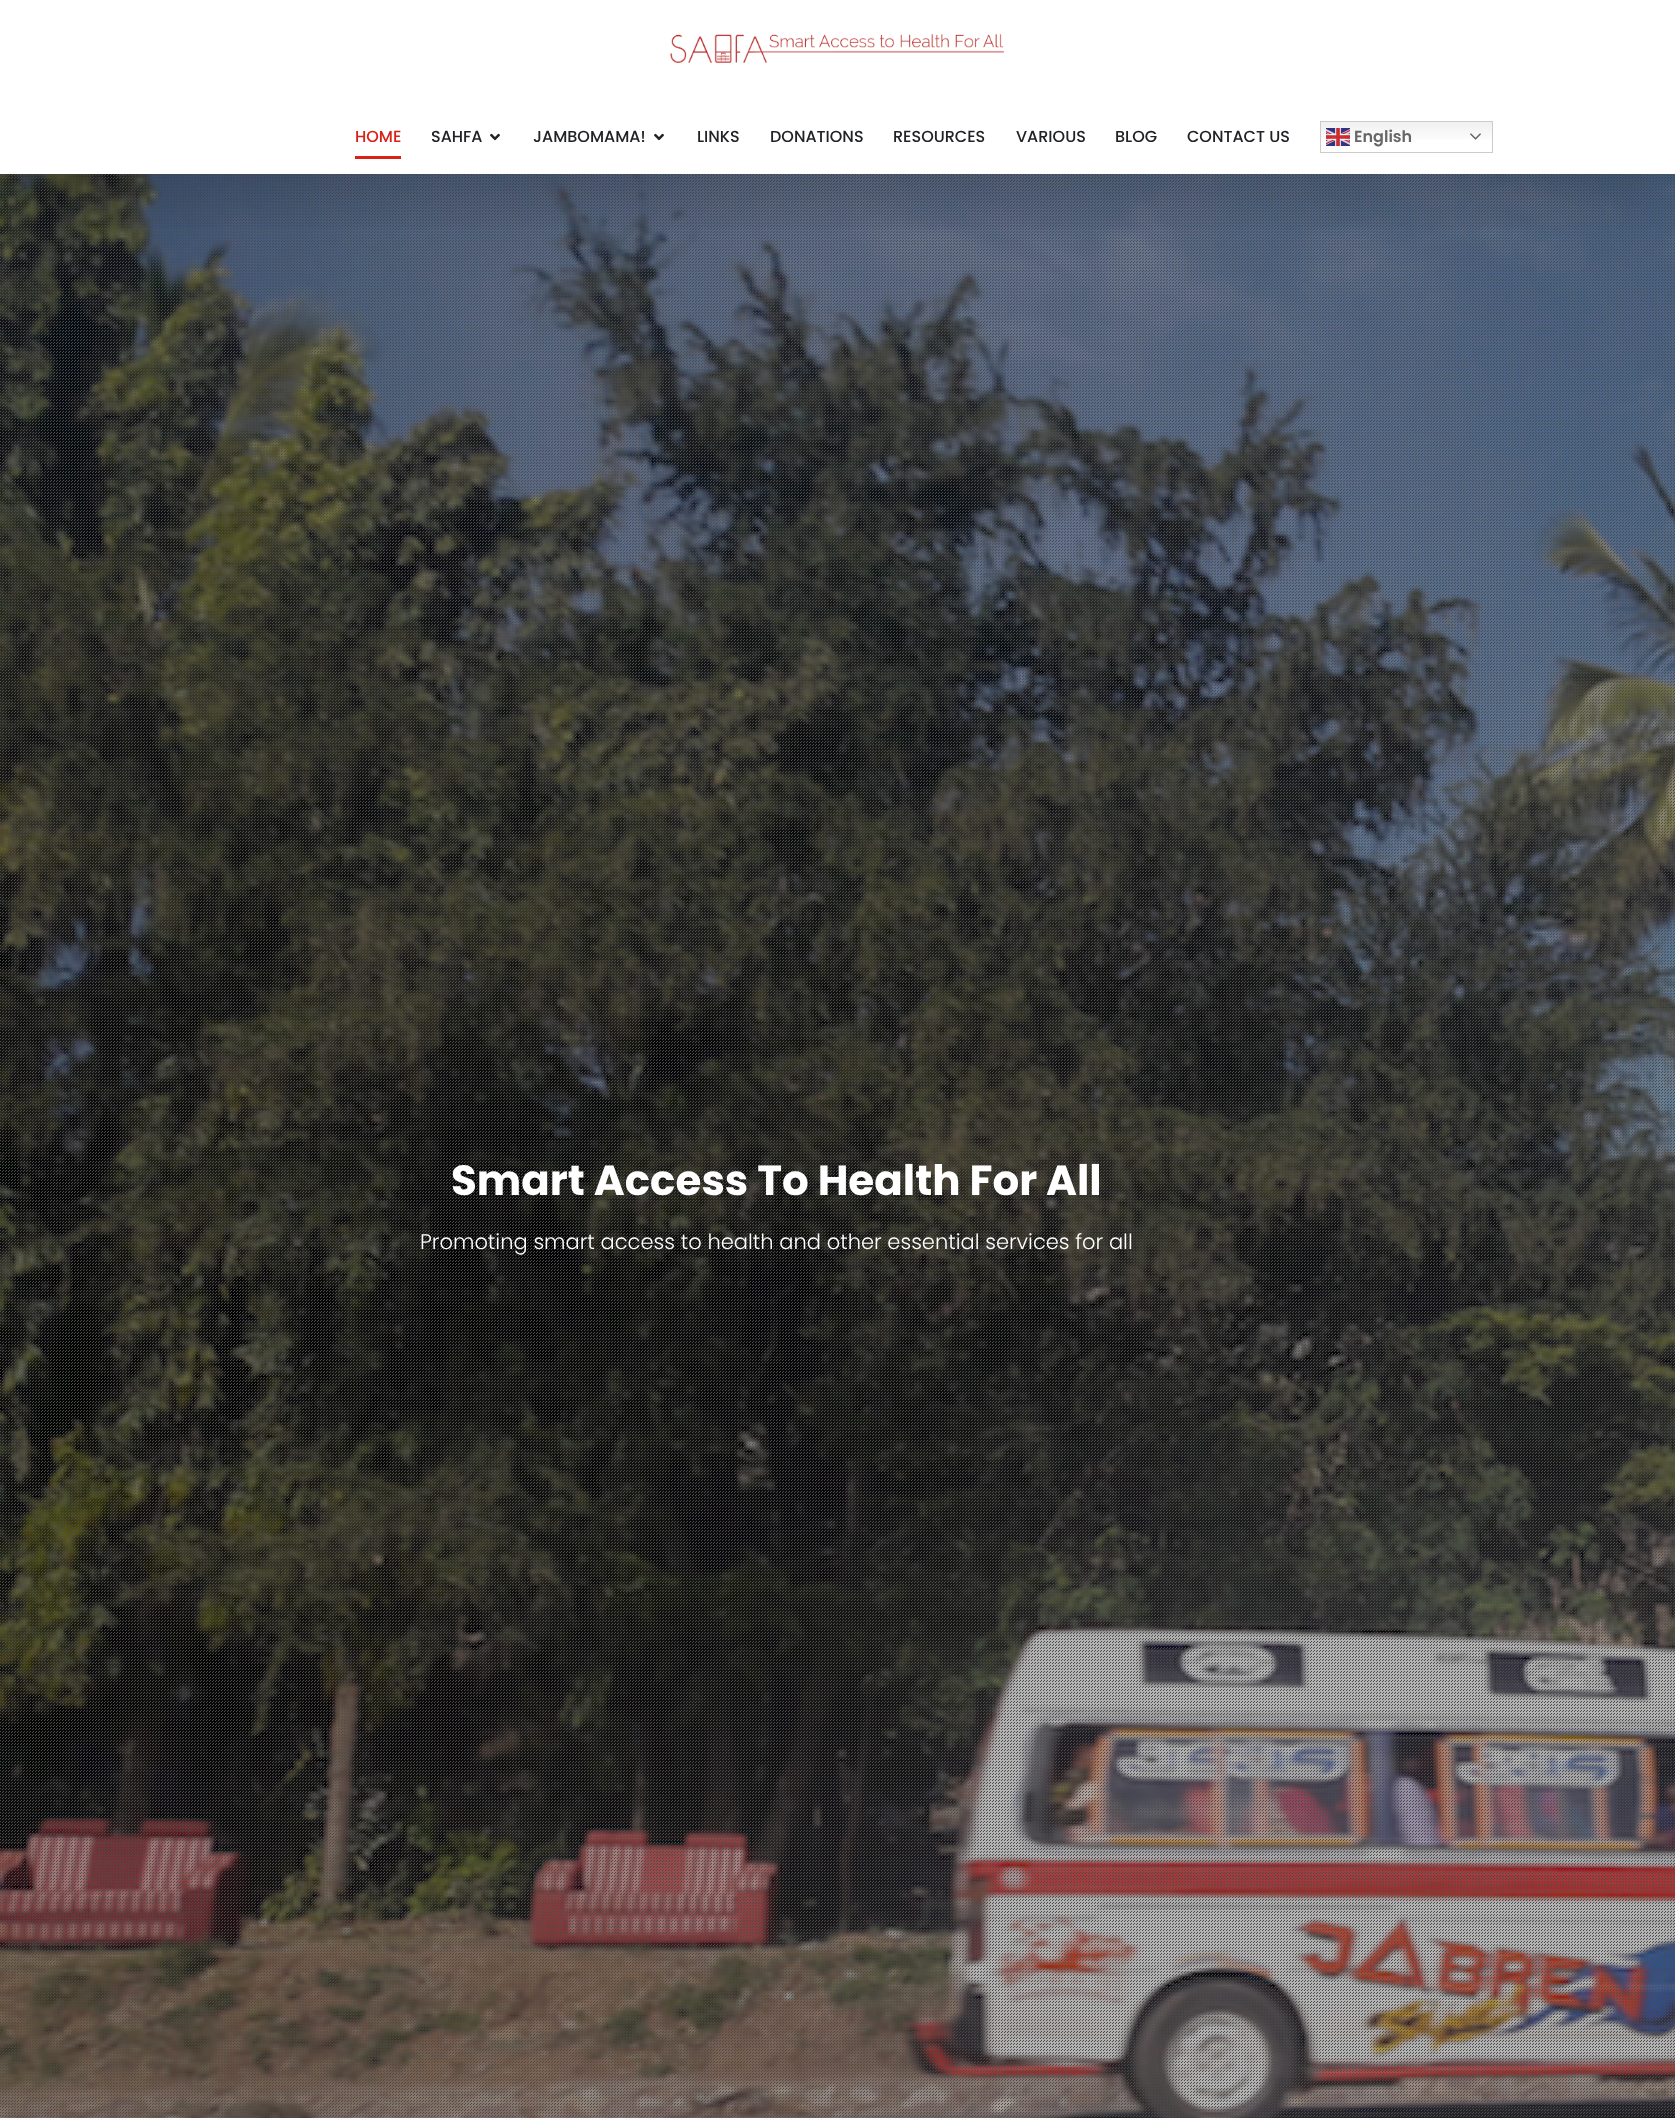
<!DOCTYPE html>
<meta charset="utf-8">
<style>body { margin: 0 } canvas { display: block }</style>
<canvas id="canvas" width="1675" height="2118"></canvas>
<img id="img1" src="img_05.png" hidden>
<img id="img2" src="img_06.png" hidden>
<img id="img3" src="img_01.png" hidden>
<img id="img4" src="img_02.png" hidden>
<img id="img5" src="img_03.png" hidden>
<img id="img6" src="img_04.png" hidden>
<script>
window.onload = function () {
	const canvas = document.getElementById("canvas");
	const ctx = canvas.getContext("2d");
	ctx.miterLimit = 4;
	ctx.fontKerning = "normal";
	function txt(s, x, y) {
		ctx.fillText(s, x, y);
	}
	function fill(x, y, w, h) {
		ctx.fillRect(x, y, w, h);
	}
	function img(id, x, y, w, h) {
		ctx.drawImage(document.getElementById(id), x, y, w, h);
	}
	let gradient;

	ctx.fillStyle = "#FFFFFF";
	fill(0, 0, 1675, 2118);
	img("img1", 0, 174, 1675, 1944);
	img("img2", 0, 174, 1675, 1943);
	ctx.save();
	ctx.beginPath();
	ctx.rect(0, 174, 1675, 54);
	ctx.clip();
	ctx.fillStyle = "rgba(0, 0, 0, 0.2)";
	ctx.filter = "blur(35.5px)";
	ctx.beginPath();
	ctx.rect(10, 29, 1655, 154);
	ctx.fill();
	ctx.filter = "none";
	ctx.restore();
	img("img3", 670, 34, 334, 29);
	ctx.fillStyle = "#D92118";
	fill(355, 156, 46, 3);
	img("img4", 490, 133, 10, 8);
	img("img4", 654, 133, 10, 8);
	gradient = ctx.createLinearGradient(1407, 121, 1407, 153);
	gradient.addColorStop(0, "#EFEFEF");
	gradient.addColorStop(0.7, "#FFFFFF");
	ctx.fillStyle = gradient;
	fill(1321, 122, 171, 18);
	ctx.strokeStyle = "#CCCCCC";
	ctx.strokeRect(1320.5, 121.5, 172, 31);
	img("img5", 1326, 128, 24, 18);
	img("img6", 1470, 133, 11, 7);
	ctx.font = "500 16px Poppins";
	ctx.fillStyle = "#D92118";
	txt("HOME", 355, 142);
	ctx.fillStyle = "#202226";
	txt("SAHFA", 431, 142);
	txt("JAMBOMAMA!", 533, 142);
	txt("LINKS", 697, 142);
	txt("DONATIONS", 770, 142);
	txt("RESOURCES", 893, 142);
	txt("VARIOUS", 1016, 142);
	txt("BLOG", 1115, 142);
	txt("CONTACT US", 1187, 142);
	ctx.font = "600 16px Poppins";
	ctx.fillStyle = "#666666";
	txt("English", 1354, 142);
	ctx.font = "bold 42px Poppins";
	ctx.fillStyle = "#FFFFFF";
	txt("Smart Access To Health For All", 451, 1195);
	ctx.font = "300 21px Poppins";
	txt("Promoting smart access to health and other essential services for all", 420, 1249);
};
</script>
